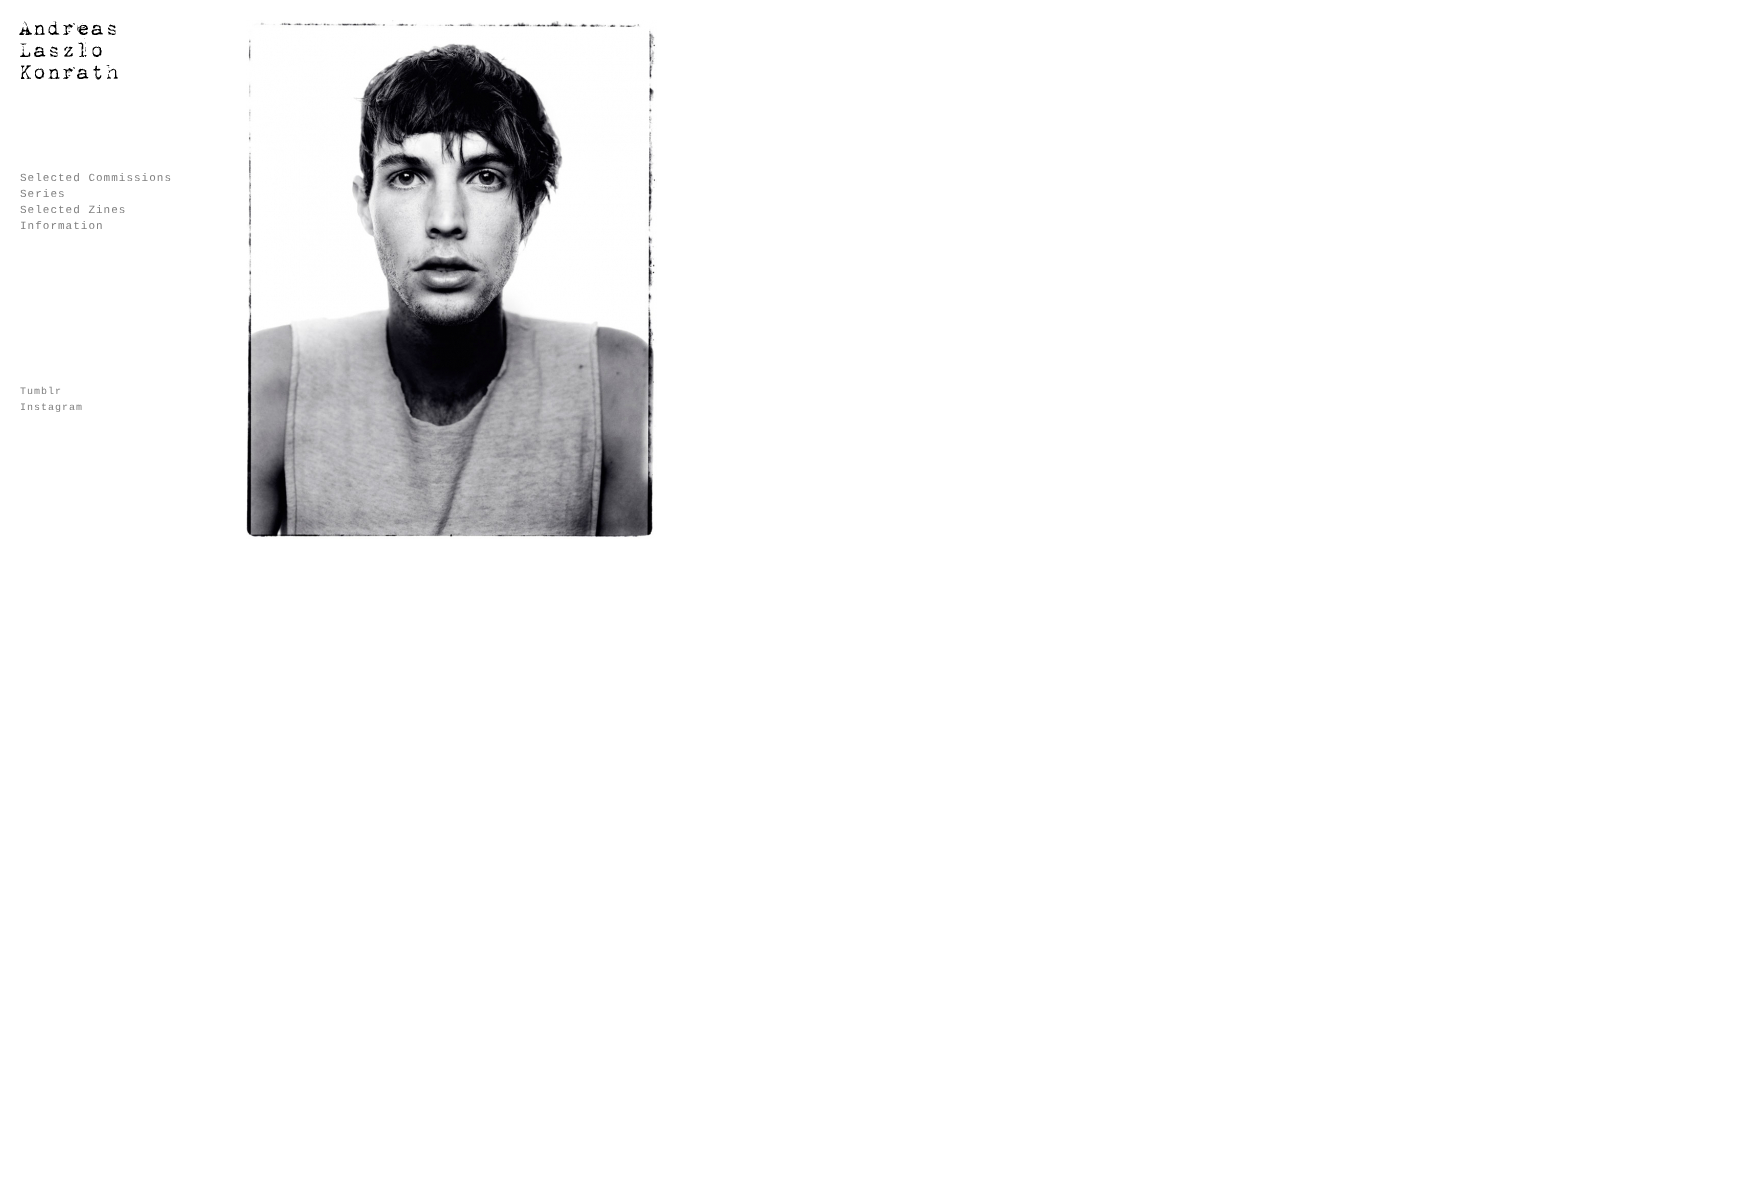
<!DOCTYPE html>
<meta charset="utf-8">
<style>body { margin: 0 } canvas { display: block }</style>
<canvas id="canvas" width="1762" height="1184"></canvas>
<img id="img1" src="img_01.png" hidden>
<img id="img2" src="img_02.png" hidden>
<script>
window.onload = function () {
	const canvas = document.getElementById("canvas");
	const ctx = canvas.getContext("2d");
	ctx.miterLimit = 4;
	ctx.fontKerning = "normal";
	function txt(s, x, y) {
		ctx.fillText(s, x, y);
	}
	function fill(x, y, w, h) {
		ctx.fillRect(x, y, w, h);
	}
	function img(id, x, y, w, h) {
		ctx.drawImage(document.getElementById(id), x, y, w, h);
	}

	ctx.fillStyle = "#FFFFFF";
	fill(0, 0, 1762, 1184);
	img("img1", 19, 21, 99, 59);
	img("img2", 246, 20, 411, 519);
	ctx.letterSpacing = "1px";
	ctx.font = "11px Liberation Mono";
	ctx.fillStyle = "#808080";
	txt("Selected Commissions", 20, 181);
	txt("Series", 20, 197);
	txt("Selected Zines", 20, 213);
	txt("Information", 20, 229);
	ctx.font = "10px Liberation Mono";
	txt("Tumblr", 20, 394);
	txt("Instagram", 20, 410);
};
</script>
